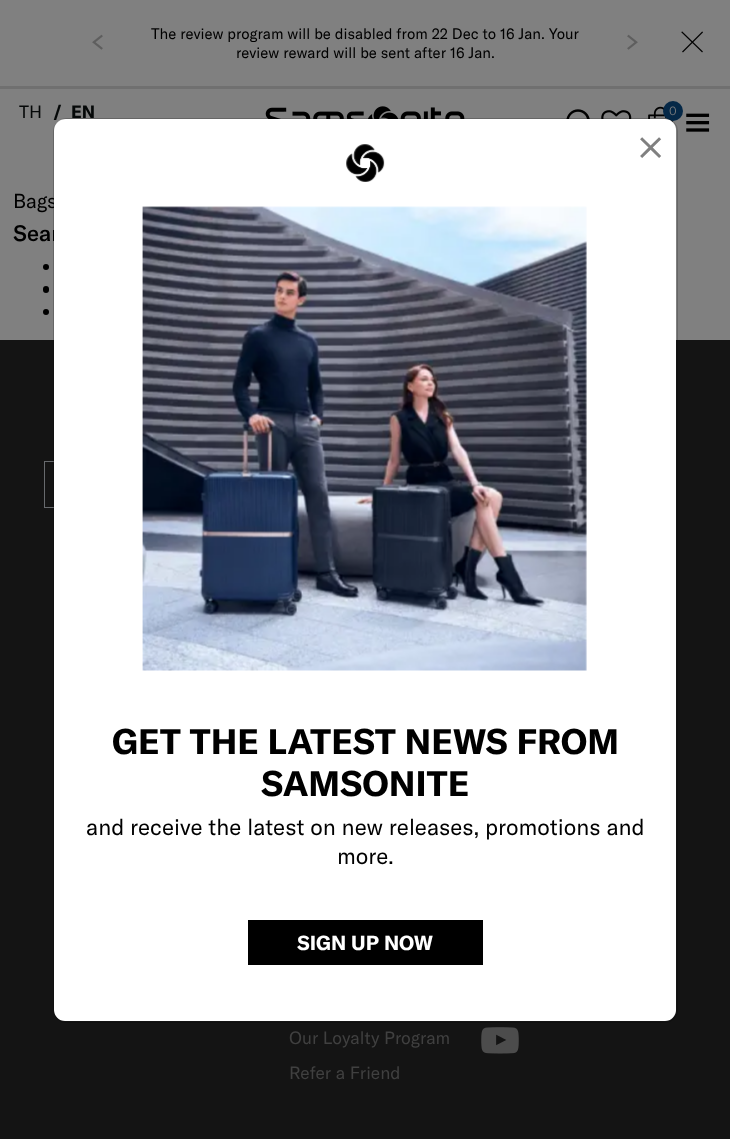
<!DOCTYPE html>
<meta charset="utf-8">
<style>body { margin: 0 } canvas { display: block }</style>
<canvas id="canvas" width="730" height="1139"></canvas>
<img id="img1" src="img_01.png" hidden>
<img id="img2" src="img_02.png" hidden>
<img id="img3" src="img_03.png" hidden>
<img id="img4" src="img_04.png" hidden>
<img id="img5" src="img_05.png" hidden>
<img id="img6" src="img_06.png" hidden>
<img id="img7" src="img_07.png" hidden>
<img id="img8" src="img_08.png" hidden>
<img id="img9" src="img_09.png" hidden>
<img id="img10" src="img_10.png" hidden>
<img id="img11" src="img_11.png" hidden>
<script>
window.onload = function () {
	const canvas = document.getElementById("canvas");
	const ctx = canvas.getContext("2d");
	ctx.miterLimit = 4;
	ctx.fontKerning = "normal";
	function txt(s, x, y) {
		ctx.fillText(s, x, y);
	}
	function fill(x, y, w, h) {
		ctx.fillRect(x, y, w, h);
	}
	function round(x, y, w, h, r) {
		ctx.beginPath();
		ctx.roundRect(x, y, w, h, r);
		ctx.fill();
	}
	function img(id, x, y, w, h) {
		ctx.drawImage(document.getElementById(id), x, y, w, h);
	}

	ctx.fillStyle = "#808080";
	fill(0, 0, 730, 1139);
	ctx.fillStyle = "#707070";
	fill(0, 86, 730, 3);
	img("img1", 92, 34, 11, 16);
	img("img2", 627, 34, 11, 16);
	img("img3", 681, 31, 22, 22);
	img("img4", 265, 106, 200, 13);
	img("img5", 566, 109, 24, 10);
	img("img6", 601, 110, 31, 9);
	img("img7", 648, 106, 25, 17);
	ctx.fillStyle = "#052847";
	ctx.beginPath();
	ctx.arc(673, 111, 10, 0, Math.PI * 2);
	ctx.fill();
	img("img8", 686, 113, 24, 19);
	ctx.fillStyle = "#000000";
	ctx.beginPath();
	ctx.arc(46, 267, 3, 0, Math.PI * 2);
	ctx.fill();
	round(43, 286, 6, 7, 3);
	ctx.beginPath();
	ctx.arc(46, 312, 3, 0, Math.PI * 2);
	ctx.fill();
	ctx.fillStyle = "#141414";
	fill(0, 340, 730, 799);
	ctx.strokeStyle = "#676A6D";
	ctx.strokeRect(44.5, 461.5, 79, 46);
	img("img9", 481, 1027, 38, 27);
	ctx.font = "15px GT America";
	ctx.fillStyle = "#000000";
	txt("The review program will be disabled from 22 Dec to 16 Jan. Your", 151, 39);
	txt("review reward will be sent after 16 Jan.", 236, 58);
	ctx.font = "17.5px GT America";
	ctx.fillStyle = "#050808";
	txt("TH", 19, 118);
	ctx.font = "bold 17.5px GT America";
	txt("/", 53, 118);
	txt("EN", 71, 118);
	ctx.font = "300 12px GT America";
	ctx.fillStyle = "#808080";
	txt("0", 669, 115);
	ctx.font = "20px GT America";
	ctx.fillStyle = "#000000";
	txt("Bags", 13, 208);
	ctx.font = "500 22px GT America";
	txt("Sear", 13, 241);
	ctx.font = "17.5px GT America";
	ctx.fillStyle = "#404040";
	txt("Our Loyalty Program", 289, 1044);
	txt("Refer a Friend", 289, 1079);
	ctx.fillStyle = "#FFFFFF";
	round(54, 119, 622, 902, 11);
	ctx.beginPath();
	ctx.roundRect(53.5, 118.5, 624, 904, 12.5);
	ctx.strokeStyle = "rgba(0, 0, 0, 0.2)";
	ctx.stroke();
	img("img10", 346, 144, 39, 38);
	ctx.font = "300 44px GT America";
	ctx.fillStyle = "#808080";
	txt("×", 637, 162);
	img("img11", 142, 206, 445, 465);
	ctx.font = "bold 35px GT America";
	ctx.fillStyle = "#000000";
	txt("GET THE LATEST NEWS FROM", 112, 754);
	txt("SAMSONITE", 261, 796);
	ctx.font = "22.5px GT America";
	txt("and receive the latest on new releases, promotions and", 86, 835);
	txt("more.", 337, 864);
	fill(248, 920, 235, 45);
	ctx.font = "bold 20px GT America";
	ctx.fillStyle = "#FFFFFF";
	txt("SIGN UP NOW", 297, 950);
};
</script>
